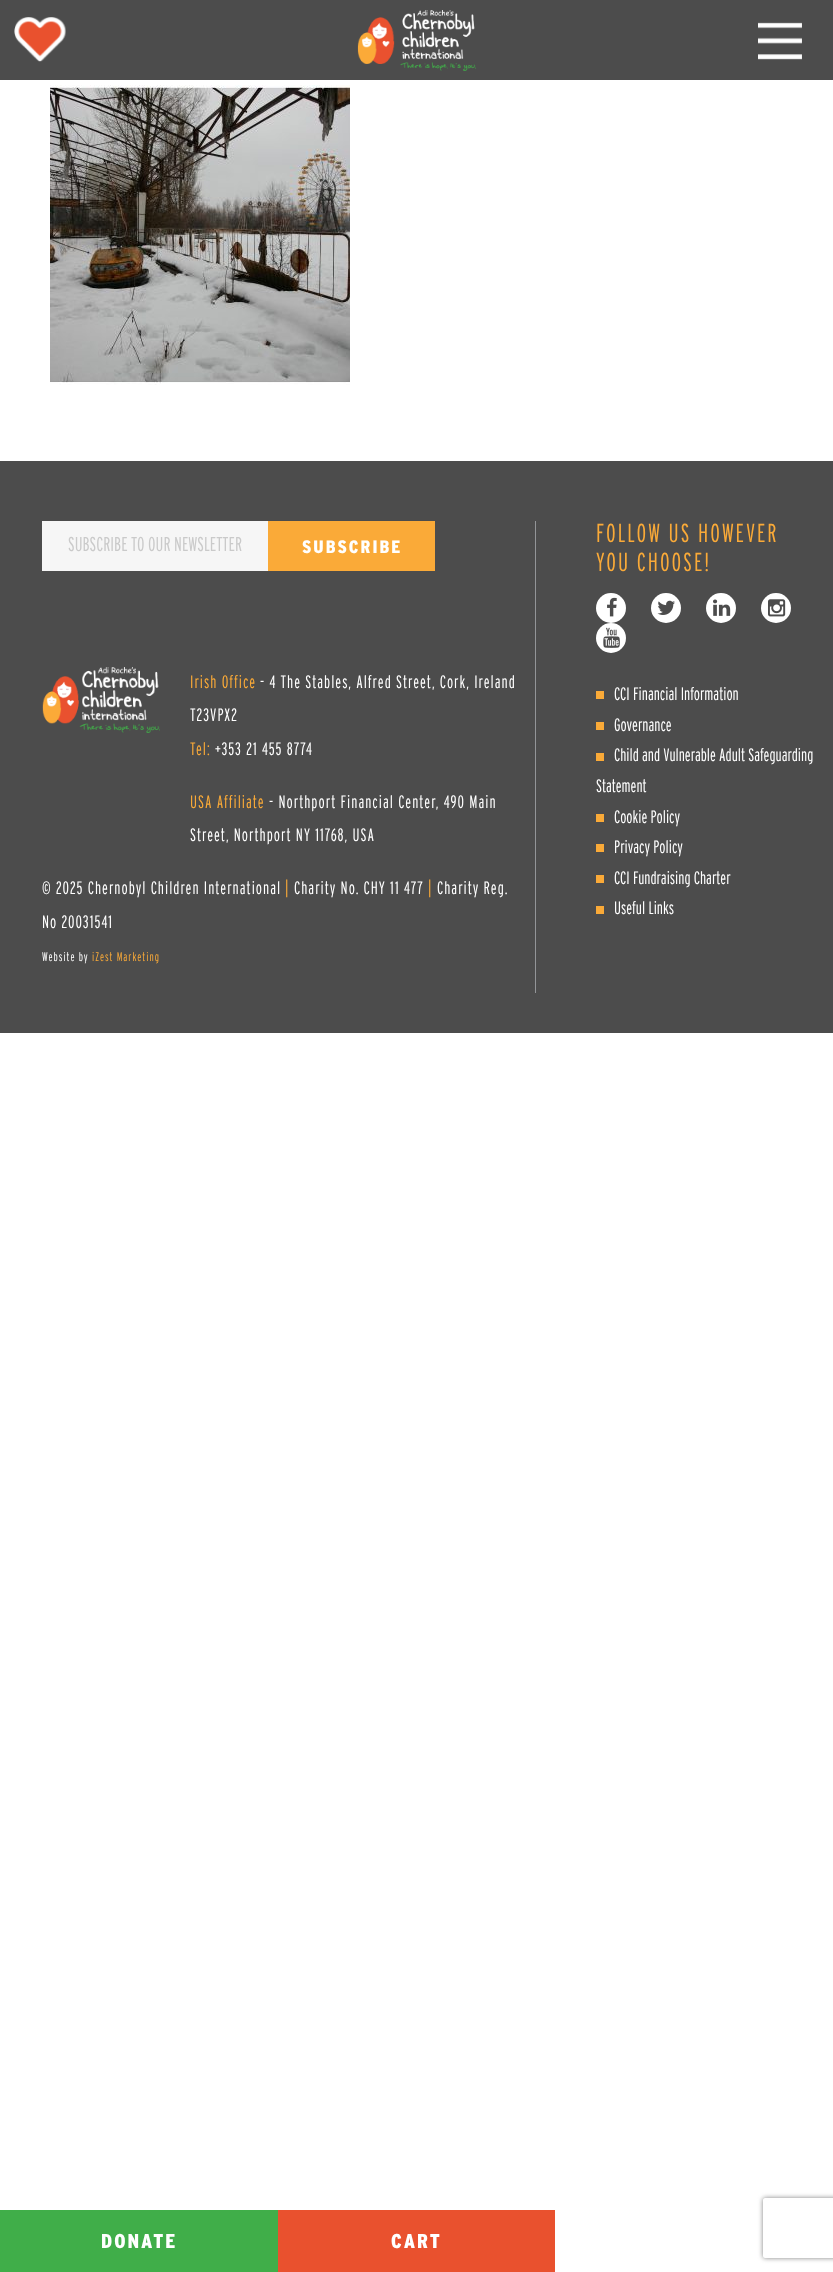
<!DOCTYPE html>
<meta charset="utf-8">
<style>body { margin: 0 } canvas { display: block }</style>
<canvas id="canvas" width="833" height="2272"></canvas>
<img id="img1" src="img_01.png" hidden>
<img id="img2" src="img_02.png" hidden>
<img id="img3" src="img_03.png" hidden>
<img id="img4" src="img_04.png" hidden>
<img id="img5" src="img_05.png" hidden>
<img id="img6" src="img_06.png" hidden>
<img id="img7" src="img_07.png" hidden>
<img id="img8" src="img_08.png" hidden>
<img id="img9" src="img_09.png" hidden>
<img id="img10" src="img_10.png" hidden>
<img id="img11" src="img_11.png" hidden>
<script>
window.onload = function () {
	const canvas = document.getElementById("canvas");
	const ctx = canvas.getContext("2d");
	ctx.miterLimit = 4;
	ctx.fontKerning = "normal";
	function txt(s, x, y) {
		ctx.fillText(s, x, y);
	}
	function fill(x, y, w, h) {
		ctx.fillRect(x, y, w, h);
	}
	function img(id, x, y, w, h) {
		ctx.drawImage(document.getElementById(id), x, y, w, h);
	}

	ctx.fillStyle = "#FFFFFF";
	fill(0, 0, 833, 2272);
	ctx.fillStyle = "#4C4C4C";
	fill(0, 0, 833, 80);
	img("img1", 14, 17, 52, 45);
	img("img2", 357, 17, 38, 47);
	img("img3", 400, 10, 76, 61);
	img("img4", 758, 22, 44, 38);
	img("img5", 50, 85, 300, 300);
	fill(0, 461, 833, 572);
	ctx.fillStyle = "#939598";
	fill(535, 521, 1, 472);
	ctx.fillStyle = "#F6F6F6";
	fill(42, 521, 226, 50);
	ctx.fillStyle = "#FAAA38";
	fill(268, 521, 167, 50);
	img("img6", 42, 667, 118, 66);
	ctx.fillStyle = "#FFFFFF";
	ctx.beginPath();
	ctx.arc(611, 608, 15, 0, Math.PI * 2);
	ctx.fill();
	img("img7", 607, 597, 10, 20);
	ctx.beginPath();
	ctx.arc(666, 608, 15, 0, Math.PI * 2);
	ctx.fill();
	img("img8", 657, 600, 18, 15);
	ctx.beginPath();
	ctx.arc(721, 608, 15, 0, Math.PI * 2);
	ctx.fill();
	img("img9", 713, 599, 18, 17);
	ctx.beginPath();
	ctx.arc(776, 608, 15, 0, Math.PI * 2);
	ctx.fill();
	img("img10", 768, 599, 18, 18);
	ctx.beginPath();
	ctx.arc(611, 638, 15, 0, Math.PI * 2);
	ctx.fill();
	img("img11", 603, 627, 17, 21);
	ctx.fillStyle = "#FAAA38";
	fill(596, 691, 8, 8);
	fill(596, 722, 8, 8);
	fill(596, 753, 8, 8);
	fill(596, 814, 8, 8);
	fill(596, 844, 8, 8);
	fill(596, 875, 8, 8);
	fill(596, 906, 8, 8);
	ctx.fillStyle = "#40AE49";
	fill(0, 2210, 278, 62);
	ctx.fillStyle = "#E9512E";
	fill(278, 2210, 277, 62);
	ctx.save();
	ctx.beginPath();
	ctx.moveTo(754, 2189);
	ctx.lineTo(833, 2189);
	ctx.lineTo(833, 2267);
	ctx.lineTo(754, 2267);
	ctx.closePath();
	ctx.moveTo(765, 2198);
	ctx.lineTo(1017, 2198);
	ctx.bezierCurveTo(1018, 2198, 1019, 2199, 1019, 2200);
	ctx.lineTo(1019, 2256);
	ctx.bezierCurveTo(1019, 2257, 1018, 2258, 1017, 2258);
	ctx.lineTo(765, 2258);
	ctx.bezierCurveTo(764, 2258, 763, 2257, 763, 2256);
	ctx.lineTo(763, 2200);
	ctx.bezierCurveTo(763, 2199, 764, 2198, 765, 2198);
	ctx.closePath();
	ctx.clip("evenodd");
	ctx.fillStyle = "#808080";
	ctx.filter = "blur(2.5px)";
	ctx.beginPath();
	ctx.roundRect(763, 2198, 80, 60, 2);
	ctx.fill();
	ctx.filter = "none";
	ctx.restore();
	ctx.font = "300 20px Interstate";
	ctx.fillStyle = "#CACACA";
	txt("SUBSCRIBE TO OUR NEWSLETTER", 68, 551);
	ctx.letterSpacing = "2px";
	ctx.font = "900 18px Interstate";
	ctx.fillStyle = "#FFFFFF";
	txt("SUBSCRIBE", 302, 553);
	ctx.letterSpacing = "1px";
	ctx.font = "300 18px Interstate";
	ctx.fillStyle = "#FAAA38";
	txt("Irish Office", 190, 688);
	ctx.fillStyle = "#FFFFFF";
	txt("- 4 The Stables, Alfred Street, Cork, Ireland", 260, 688);
	txt("T23VPX2", 190, 721);
	ctx.fillStyle = "#FAAA38";
	txt("Tel:", 190, 755);
	ctx.fillStyle = "#FFFFFF";
	txt("+353 21 455 8774", 215, 755);
	ctx.fillStyle = "#FAAA38";
	txt("USA Affiliate", 190, 808);
	ctx.fillStyle = "#FFFFFF";
	txt("- Northport Financial Center, 490 Main", 269, 808);
	txt("Street, Northport NY 11768, USA", 190, 841);
	txt("© 2025 Chernobyl Children International", 42, 894);
	ctx.fillStyle = "#FAAA38";
	txt("|", 285, 894);
	ctx.fillStyle = "#FFFFFF";
	txt("Charity No. CHY 11 477", 294, 894);
	ctx.fillStyle = "#FAAA38";
	txt("|", 428, 894);
	ctx.fillStyle = "#FFFFFF";
	txt("Charity Reg.", 437, 894);
	txt("No 20031541", 42, 928);
	ctx.font = "300 12.5px Interstate";
	txt("Website by", 42, 961);
	ctx.fillStyle = "#FAAA38";
	txt("iZest Marketing", 92, 961);
	ctx.letterSpacing = "2px";
	ctx.font = "300 26px Interstate";
	txt("FOLLOW US HOWEVER", 596, 542);
	txt("YOU CHOOSE!", 596, 571);
	ctx.letterSpacing = "0px";
	ctx.font = "300 18px Interstate";
	ctx.fillStyle = "#FFFFFF";
	txt("CCI Financial Information", 614, 700);
	txt("Governance", 614, 731);
	txt("Child and Vulnerable Adult Safeguarding", 614, 761);
	txt("Statement", 596, 792);
	txt("Cookie Policy", 614, 823);
	txt("Privacy Policy", 614, 853);
	txt("CCI Fundraising Charter", 614, 884);
	txt("Useful Links", 614, 914);
	ctx.letterSpacing = "2px";
	ctx.font = "900 20px Interstate";
	txt("DONATE", 101, 2248);
	txt("CART", 391, 2248);
};
</script>
